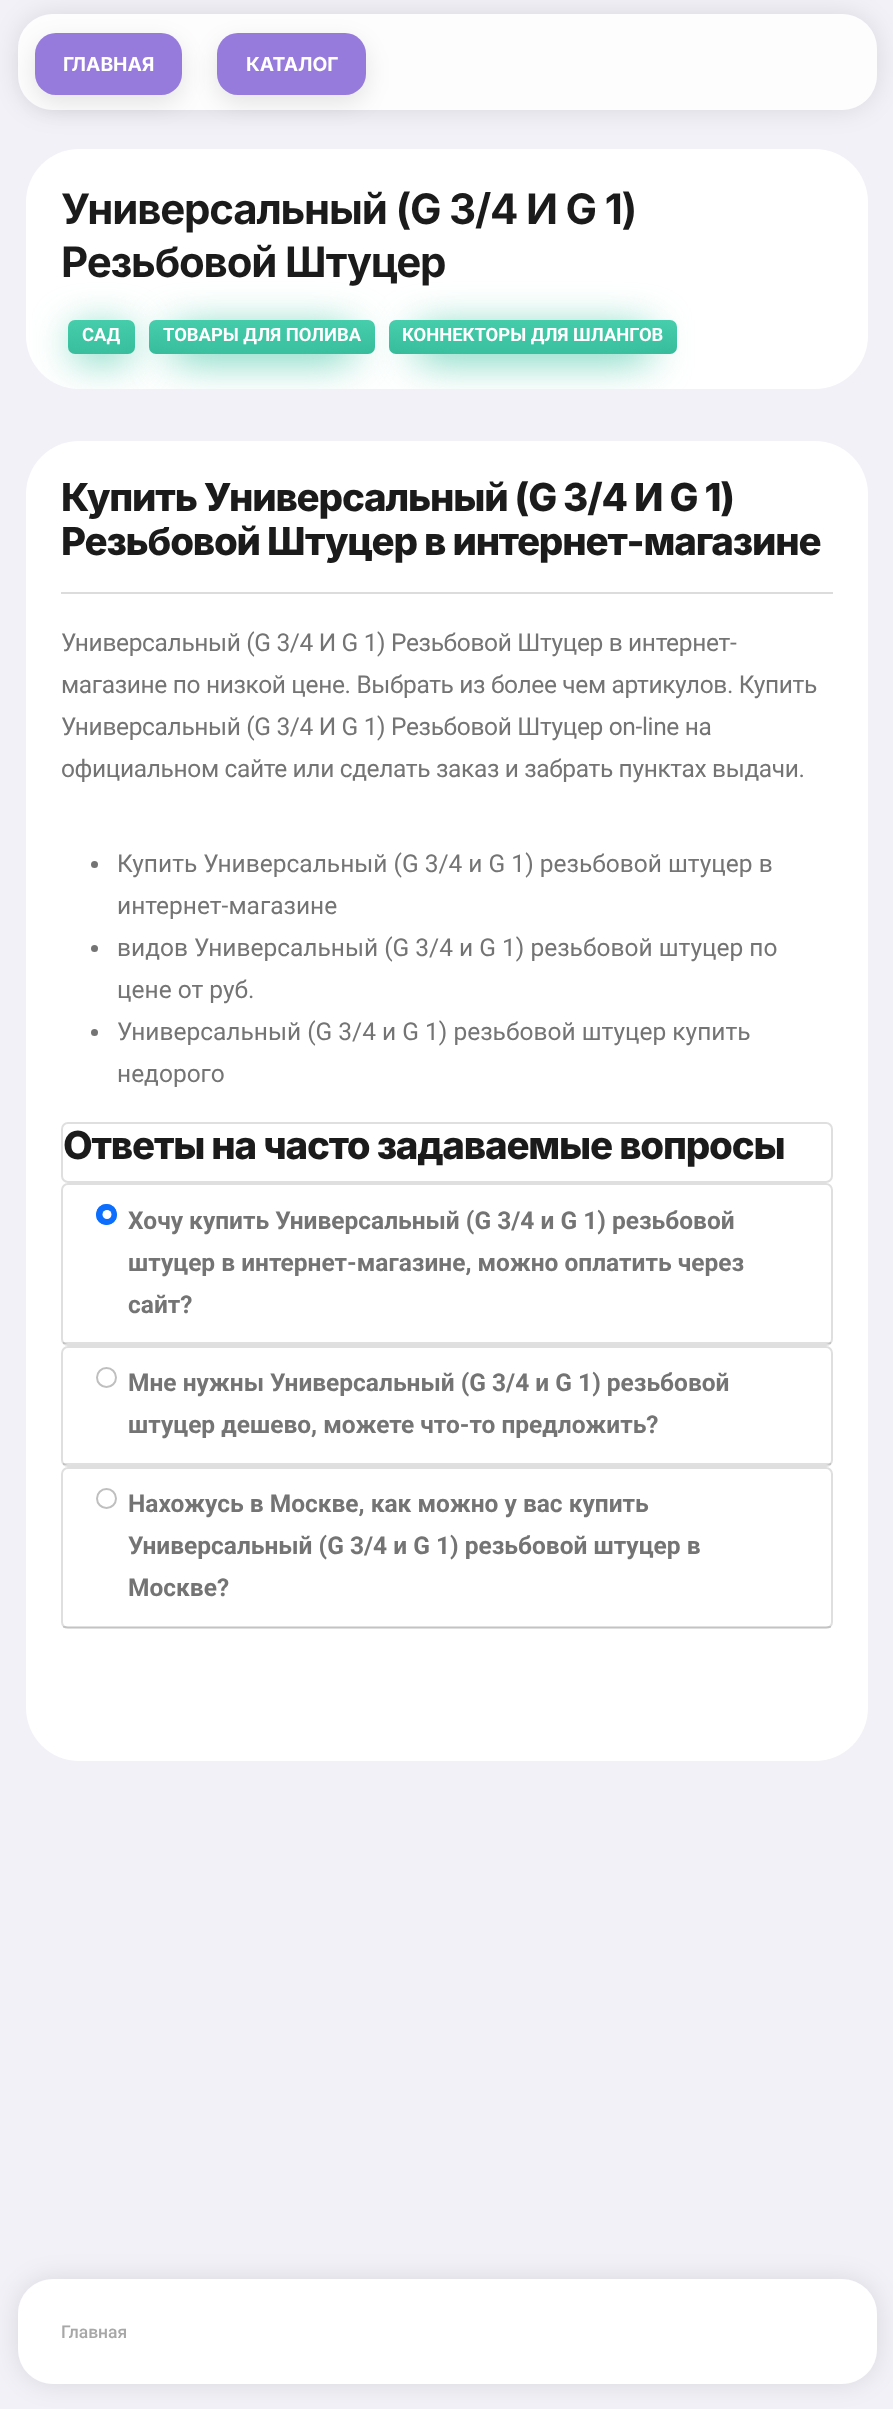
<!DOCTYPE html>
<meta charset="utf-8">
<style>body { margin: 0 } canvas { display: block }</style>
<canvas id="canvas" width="893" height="2409"></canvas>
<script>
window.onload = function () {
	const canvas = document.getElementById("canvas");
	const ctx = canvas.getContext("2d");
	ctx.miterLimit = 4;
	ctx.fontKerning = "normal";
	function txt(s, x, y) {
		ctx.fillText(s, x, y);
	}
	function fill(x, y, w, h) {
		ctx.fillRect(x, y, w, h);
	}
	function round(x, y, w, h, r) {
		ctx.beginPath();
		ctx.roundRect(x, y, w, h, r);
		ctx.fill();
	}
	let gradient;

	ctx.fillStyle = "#F1F1F7";
	fill(0, 0, 893, 2409);
	ctx.fillStyle = "#FFFFFF";
	round(26, 149, 842, 240, 53);
	ctx.save();
	ctx.beginPath();
	ctx.moveTo(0, 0);
	ctx.lineTo(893, 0);
	ctx.lineTo(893, 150);
	ctx.lineTo(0, 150);
	ctx.closePath();
	ctx.moveTo(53, 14);
	ctx.lineTo(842, 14);
	ctx.bezierCurveTo(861.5, 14, 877, 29.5, 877, 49);
	ctx.lineTo(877, 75);
	ctx.bezierCurveTo(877, 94.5, 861.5, 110, 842, 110);
	ctx.lineTo(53, 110);
	ctx.bezierCurveTo(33.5, 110, 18, 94.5, 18, 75);
	ctx.lineTo(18, 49);
	ctx.bezierCurveTo(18, 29.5, 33.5, 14, 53, 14);
	ctx.closePath();
	ctx.clip("evenodd");
	ctx.fillStyle = "rgba(0, 0, 0, 0.1)";
	ctx.filter = "blur(13px)";
	ctx.beginPath();
	ctx.roundRect(18, 14, 859, 96, 35);
	ctx.fill();
	ctx.filter = "none";
	ctx.restore();
	ctx.fillStyle = "rgba(255, 255, 255, 0.85)";
	round(18, 14, 859, 96, 35);
	ctx.fillStyle = "rgba(0, 0, 0, 0.1)";
	ctx.filter = "blur(12px)";
	ctx.beginPath();
	ctx.roundRect(35, 42, 147, 61, 21);
	ctx.fill();
	ctx.filter = "none";
	ctx.fillStyle = "#967ADC";
	round(35, 33, 147, 62, 21);
	ctx.fillStyle = "rgba(0, 0, 0, 0.1)";
	ctx.filter = "blur(12px)";
	ctx.beginPath();
	ctx.roundRect(217, 42, 149, 61, 21);
	ctx.fill();
	ctx.filter = "none";
	ctx.fillStyle = "#967ADC";
	round(217, 33, 149, 62, 21);
	gradient = ctx.createLinearGradient(102, 320, 102, 354);
	gradient.addColorStop(0, "#48CFAD");
	gradient.addColorStop(1, "#37BC9B");
	ctx.fillStyle = gradient;
	round(68, 320, 67, 34, 7);
	ctx.save();
	ctx.beginPath();
	ctx.roundRect(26, 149, 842, 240, 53);
	ctx.clip();
	ctx.fillStyle = "#40C6A4";
	ctx.filter = "blur(21px)";
	ctx.beginPath();
	ctx.rect(75, 331, 53, 26);
	ctx.fill();
	ctx.filter = "none";
	ctx.restore();
	gradient = ctx.createLinearGradient(262, 320, 262, 354);
	gradient.addColorStop(0, "#48CFAD");
	gradient.addColorStop(1, "#37BC9B");
	ctx.fillStyle = gradient;
	round(149, 320, 226, 34, 7);
	ctx.save();
	ctx.beginPath();
	ctx.roundRect(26, 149, 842, 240, 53);
	ctx.clip();
	ctx.fillStyle = "#40C6A4";
	ctx.filter = "blur(21px)";
	ctx.beginPath();
	ctx.rect(172, 331, 180, 26);
	ctx.fill();
	ctx.filter = "none";
	ctx.restore();
	gradient = ctx.createLinearGradient(533, 320, 533, 354);
	gradient.addColorStop(0, "#48CFAD");
	gradient.addColorStop(1, "#37BC9B");
	ctx.fillStyle = gradient;
	round(389, 320, 288, 34, 7);
	ctx.save();
	ctx.beginPath();
	ctx.roundRect(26, 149, 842, 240, 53);
	ctx.clip();
	ctx.fillStyle = "#40C6A4";
	ctx.filter = "blur(21px)";
	ctx.beginPath();
	ctx.rect(417, 331, 232, 26);
	ctx.fill();
	ctx.filter = "none";
	ctx.restore();
	ctx.fillStyle = "#FFFFFF";
	round(26, 441, 842, 1320, 53);
	ctx.fillStyle = "#DCDCDC";
	fill(61, 592, 772, 2);
	ctx.fillStyle = "#747474";
	ctx.beginPath();
	ctx.arc(94.5, 864.5, 3.5, 0, Math.PI * 2);
	ctx.fill();
	ctx.beginPath();
	ctx.arc(94.5, 948.5, 3.5, 0, Math.PI * 2);
	ctx.fill();
	ctx.beginPath();
	ctx.arc(94.5, 1032.5, 3.5, 0, Math.PI * 2);
	ctx.fill();
	ctx.beginPath();
	ctx.roundRect(62, 1123, 770, 59, 6);
	ctx.strokeStyle = "#DFDFDF";
	ctx.lineWidth = 2;
	ctx.stroke();
	ctx.beginPath();
	ctx.roundRect(62, 1184, 770, 161, 6);
	ctx.stroke();
	ctx.fillStyle = "rgba(0, 0, 0, 0.12)";
	fill(63, 1342, 768, 2);
	ctx.fillStyle = "#0D6EFD";
	ctx.beginPath();
	ctx.arc(106.5, 1214.5, 10.5, 0, Math.PI * 2);
	ctx.fill();
	ctx.fillStyle = "#FFFFFF";
	ctx.beginPath();
	ctx.arc(107, 1214.5, 4.5, 0, Math.PI * 2);
	ctx.fill();
	ctx.beginPath();
	ctx.arc(106.5, 1214.5, 9.5, 0, Math.PI * 2);
	ctx.strokeStyle = "#0D6EFD";
	ctx.stroke();
	ctx.beginPath();
	ctx.roundRect(62, 1347, 770, 119, 6);
	ctx.strokeStyle = "#DFDFDF";
	ctx.stroke();
	ctx.fillStyle = "rgba(0, 0, 0, 0.12)";
	fill(63, 1463, 768, 2);
	ctx.beginPath();
	ctx.arc(106.5, 1377.5, 9.5, 0, Math.PI * 2);
	ctx.strokeStyle = "#BFBFBF";
	ctx.stroke();
	ctx.beginPath();
	ctx.roundRect(62, 1468, 770, 160, 6);
	ctx.strokeStyle = "#DFDFDF";
	ctx.stroke();
	fill(63, 1626, 768, 2);
	ctx.beginPath();
	ctx.arc(106.5, 1498.5, 9.5, 0, Math.PI * 2);
	ctx.strokeStyle = "#BFBFBF";
	ctx.stroke();
	ctx.save();
	ctx.beginPath();
	ctx.moveTo(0, 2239);
	ctx.lineTo(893, 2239);
	ctx.lineTo(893, 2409);
	ctx.lineTo(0, 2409);
	ctx.closePath();
	ctx.moveTo(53, 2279);
	ctx.lineTo(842, 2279);
	ctx.bezierCurveTo(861.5, 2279, 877, 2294.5, 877, 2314);
	ctx.lineTo(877, 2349);
	ctx.bezierCurveTo(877, 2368.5, 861.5, 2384, 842, 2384);
	ctx.lineTo(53, 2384);
	ctx.bezierCurveTo(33.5, 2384, 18, 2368.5, 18, 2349);
	ctx.lineTo(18, 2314);
	ctx.bezierCurveTo(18, 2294.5, 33.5, 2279, 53, 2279);
	ctx.closePath();
	ctx.clip("evenodd");
	ctx.fillStyle = "rgba(0, 0, 0, 0.1)";
	ctx.filter = "blur(13px)";
	ctx.beginPath();
	ctx.roundRect(18, 2279, 859, 105, 35);
	ctx.fill();
	ctx.filter = "none";
	ctx.restore();
	ctx.fillStyle = "rgba(255, 255, 255, 0.95)";
	round(18, 2279, 859, 105, 35);
	ctx.font = "bold 19.25px Inter";
	ctx.fillStyle = "#FFFFFF";
	txt("ГЛАВНАЯ", 63, 71);
	txt("КАТАЛОГ", 246, 71);
	ctx.letterSpacing = "-1.2px";
	ctx.font = "bold 42px Inter";
	ctx.fillStyle = "#1B1B1B";
	txt("Универсальный (G 3/4 И G 1)", 61, 224);
	txt("Резьбовой Штуцер", 61, 277);
	ctx.letterSpacing = "0px";
	ctx.font = "bold 18.4px Roboto";
	ctx.fillStyle = "#FFFFFF";
	txt("САД", 82, 341);
	txt("ТОВАРЫ ДЛЯ ПОЛИВА", 163, 341);
	txt("КОННЕКТОРЫ ДЛЯ ШЛАНГОВ", 402, 341);
	ctx.letterSpacing = "-1.2px";
	ctx.font = "800 38.5px Inter";
	ctx.fillStyle = "#1B1B1B";
	txt("Купить Универсальный (G 3/4 И G 1)", 61, 511);
	txt("Резьбовой Штуцер в интернет-магазине", 61, 555);
	ctx.letterSpacing = "-0.35px";
	ctx.font = "24.5px Roboto";
	ctx.fillStyle = "#747474";
	txt("Универсальный (G 3/4 И G 1) Резьбовой Штуцер в интернет-", 61, 651);
	txt("магазине по низкой цене. Выбрать из более чем артикулов. Купить", 61, 693);
	txt("Универсальный (G 3/4 И G 1) Резьбовой Штуцер on-line на", 61, 735);
	txt("официальном сайте или сделать заказ и забрать пунктах выдачи.", 61, 777);
	ctx.letterSpacing = "0px";
	txt("Купить Универсальный (G 3/4 и G 1) резьбовой штуцер в", 117, 872);
	txt("интернет-магазине", 117, 914);
	txt("видов Универсальный (G 3/4 и G 1) резьбовой штуцер по", 117, 956);
	txt("цене от руб.", 117, 998);
	txt("Универсальный (G 3/4 и G 1) резьбовой штуцер купить", 117, 1040);
	txt("недорого", 117, 1082);
	ctx.letterSpacing = "-1.2px";
	ctx.font = "800 38.5px Inter";
	ctx.fillStyle = "#1B1B1B";
	txt("Ответы на часто задаваемые вопросы", 63, 1159);
	ctx.letterSpacing = "0px";
	ctx.font = "bold 24.5px Roboto";
	ctx.fillStyle = "#747474";
	txt("Хочу купить Универсальный (G 3/4 и G 1) резьбовой", 128, 1229);
	txt("штуцер в интернет-магазине, можно оплатить через", 128, 1271);
	txt("сайт?", 128, 1313);
	txt("Мне нужны Универсальный (G 3/4 и G 1) резьбовой", 128, 1391);
	txt("штуцер дешево, можете что-то предложить?", 128, 1433);
	txt("Нахожусь в Москве, как можно у вас купить", 128, 1512);
	txt("Универсальный (G 3/4 и G 1) резьбовой штуцер в", 128, 1554);
	txt("Москве?", 128, 1596);
	ctx.font = "500 17.5px Roboto";
	ctx.fillStyle = "#A7A7A7";
	txt("Главная", 61, 2338);
};
</script>
